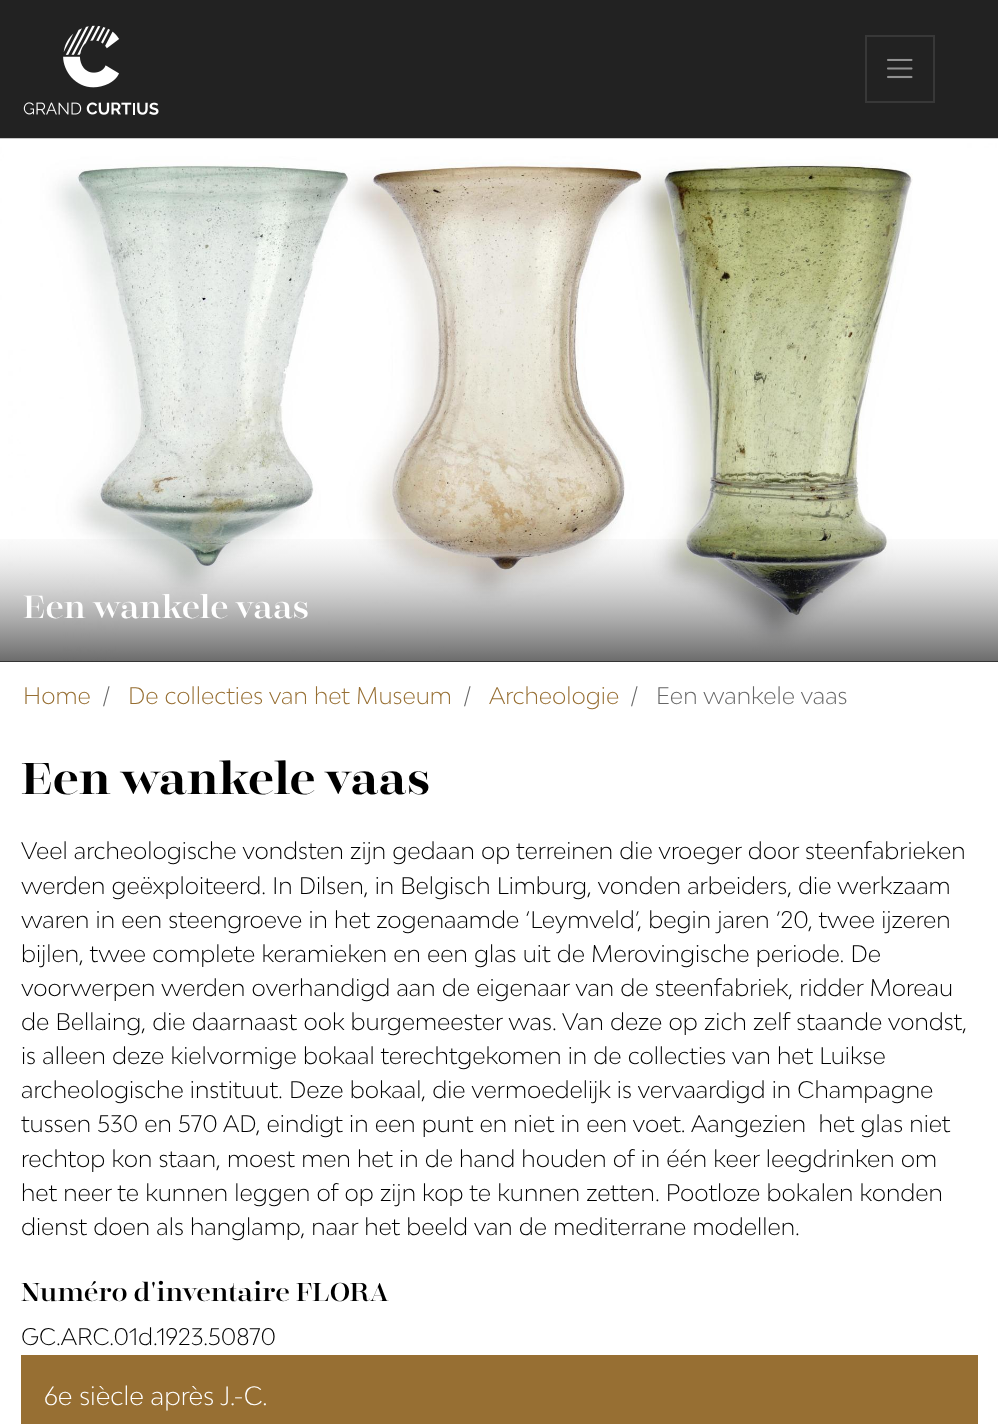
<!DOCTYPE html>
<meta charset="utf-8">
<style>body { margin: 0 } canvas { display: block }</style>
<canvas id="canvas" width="998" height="1424"></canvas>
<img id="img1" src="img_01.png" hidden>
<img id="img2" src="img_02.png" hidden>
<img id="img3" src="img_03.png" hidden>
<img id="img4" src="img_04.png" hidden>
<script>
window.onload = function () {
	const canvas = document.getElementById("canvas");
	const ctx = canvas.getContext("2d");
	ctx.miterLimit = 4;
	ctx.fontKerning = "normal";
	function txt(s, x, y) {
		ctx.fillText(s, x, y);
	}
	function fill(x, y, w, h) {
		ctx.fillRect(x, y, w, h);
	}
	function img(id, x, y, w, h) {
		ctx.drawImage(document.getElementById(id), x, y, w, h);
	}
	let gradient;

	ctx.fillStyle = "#FFFFFF";
	fill(0, 0, 998, 1424);
	ctx.fillStyle = "#222222";
	fill(0, 0, 998, 662);
	img("img1", 63, 25, 57, 63);
	img("img2", 23, 102, 136, 13);
	ctx.strokeStyle = "#383838";
	ctx.lineWidth = 2;
	ctx.strokeRect(866, 36, 68, 66);
	img("img3", 887, 58, 26, 21);
	img("img4", 0, 138, 998, 524);
	gradient = ctx.createLinearGradient(500, 707, 500, 522);
	gradient.addColorStop(0, "#222222");
	gradient.addColorStop(0.19, "rgba(34, 34, 34, 0.74)");
	gradient.addColorStop(0.34, "rgba(34, 34, 34, 0.54)");
	gradient.addColorStop(0.47, "rgba(34, 34, 34, 0.38)");
	gradient.addColorStop(0.56, "rgba(34, 34, 34, 0.28)");
	gradient.addColorStop(0.65, "rgba(34, 34, 34, 0.19)");
	gradient.addColorStop(0.73, "rgba(34, 34, 34, 0.12)");
	gradient.addColorStop(0.8, "rgba(34, 34, 34, 0.07)");
	gradient.addColorStop(0.86, "rgba(34, 34, 34, 0.04)");
	gradient.addColorStop(0.91, "rgba(34, 34, 34, 0.02)");
	gradient.addColorStop(0.95, "rgba(34, 34, 34, 0.01)");
	gradient.addColorStop(0.98, "rgba(34, 34, 34, 0)");
	gradient.addColorStop(1, "rgba(34, 34, 34, 0)");
	ctx.fillStyle = gradient;
	fill(0, 539, 998, 123);
	ctx.fillStyle = "#976F33";
	fill(21, 1355, 957, 69);
	ctx.font = "31.75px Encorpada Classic";
	ctx.fillStyle = "#FFFFFF";
	txt("Een wankele vaas", 23, 618);
	ctx.font = "300 22.75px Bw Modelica";
	ctx.fillStyle = "#976F33";
	txt("Home", 23, 704);
	ctx.fillStyle = "#666666";
	txt("/", 102, 704);
	ctx.fillStyle = "#976F33";
	txt("De collecties van het Museum", 128, 704);
	ctx.fillStyle = "#666666";
	txt("/", 463, 704);
	ctx.fillStyle = "#976F33";
	txt("Archeologie", 489, 704);
	ctx.fillStyle = "#666666";
	txt("/", 630, 704);
	txt("Een wankele vaas", 656, 704);
	ctx.font = "600 44.4px Encorpada Classic";
	ctx.fillStyle = "#000000";
	txt("Een wankele vaas", 21, 794);
	ctx.font = "300 22.75px Bw Modelica";
	txt("Veel archeologische vondsten zijn gedaan op terreinen die vroeger door steenfabrieken", 21, 859);
	txt("werden geëxploiteerd. In Dilsen, in Belgisch Limburg, vonden arbeiders, die werkzaam", 21, 894);
	txt("waren in een steengroeve in het zogenaamde ‘Leymveld’, begin jaren ‘20, twee ijzeren", 21, 928);
	txt("bijlen, twee complete keramieken en een glas uit de Merovingische periode. De", 21, 962);
	txt("voorwerpen werden overhandigd aan de eigenaar van de steenfabriek, ridder Moreau", 21, 996);
	txt("de Bellaing, die daarnaast ook burgemeester was. Van deze op zich zelf staande vondst,", 21, 1030);
	txt("is alleen deze kielvormige bokaal terechtgekomen in de collecties van het Luikse", 21, 1064);
	txt("archeologische instituut. Deze bokaal, die vermoedelijk is vervaardigd in Champagne", 21, 1098);
	txt("tussen 530 en 570 AD, eindigt in een punt en niet in een voet. Aangezien  het glas niet", 21, 1132);
	txt("rechtop kon staan, moest men het in de hand houden of in één keer leegdrinken om", 21, 1167);
	txt("het neer te kunnen leggen of op zijn kop te kunnen zetten. Pootloze bokalen konden", 21, 1201);
	txt("dienst doen als hanglamp, naar het beeld van de mediterrane modellen.", 21, 1235);
	ctx.font = "25.6px Encorpada Classic";
	txt("Numéro d'inventaire FLORA", 21, 1301);
	ctx.font = "300 22.75px Bw Modelica";
	txt("GC.ARC.01d.1923.50870", 21, 1345);
	ctx.font = "300 25px Bw Modelica";
	ctx.fillStyle = "#FFFFFF";
	txt("6e siècle après J.-C.", 44, 1405);
};
</script>
